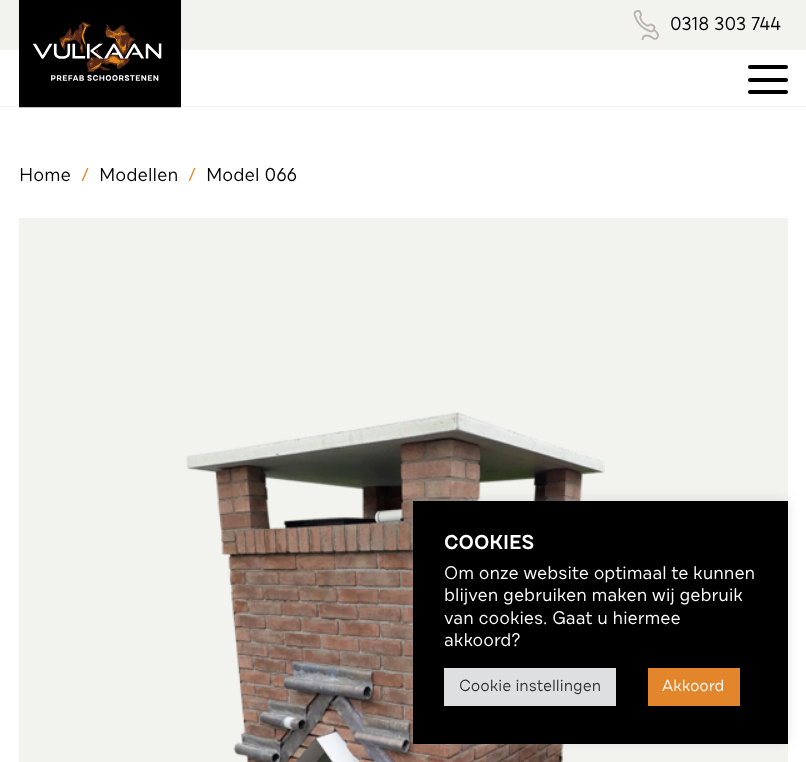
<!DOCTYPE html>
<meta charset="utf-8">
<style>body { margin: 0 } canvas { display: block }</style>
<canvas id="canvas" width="806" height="762"></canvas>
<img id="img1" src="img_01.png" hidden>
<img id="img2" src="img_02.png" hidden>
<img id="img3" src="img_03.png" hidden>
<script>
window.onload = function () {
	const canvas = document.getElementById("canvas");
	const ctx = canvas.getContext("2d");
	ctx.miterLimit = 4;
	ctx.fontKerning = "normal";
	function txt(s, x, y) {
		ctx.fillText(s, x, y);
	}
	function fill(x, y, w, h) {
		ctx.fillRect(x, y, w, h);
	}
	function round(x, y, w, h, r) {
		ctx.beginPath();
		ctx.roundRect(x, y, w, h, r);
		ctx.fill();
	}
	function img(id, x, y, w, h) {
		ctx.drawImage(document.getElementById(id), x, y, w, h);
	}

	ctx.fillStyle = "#FFFFFF";
	fill(0, 0, 806, 762);
	ctx.fillStyle = "#F2F2EF";
	fill(0, 106, 806, 1);
	fill(0, 0, 806, 50);
	img("img1", 19, 0, 162, 108);
	img("img2", 633, 10, 26, 30);
	ctx.fillStyle = "#000000";
	round(748, 78, 40, 4, 2);
	round(748, 65, 40, 4, 2);
	round(748, 90, 40, 4, 2);
	ctx.fillStyle = "#F2F2EF";
	fill(19, 218, 769, 544);
	img("img3", 186, 412, 419, 350);
	ctx.fillStyle = "rgba(172, 171, 171, 0.3)";
	ctx.filter = "blur(6px)";
	ctx.beginPath();
	ctx.rect(413, 500, 375, 243);
	ctx.fill();
	ctx.filter = "none";
	ctx.fillStyle = "#000000";
	fill(413, 501, 375, 243);
	ctx.fillStyle = "#DEDFE0";
	fill(444, 668, 172, 38);
	ctx.fillStyle = "#E3862B";
	fill(648, 668, 92, 38);
	ctx.font = "18.75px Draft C";
	ctx.fillStyle = "#000000";
	txt("0318 303 744", 670, 30);
	txt("Home", 19, 181);
	ctx.fillStyle = "#E38620";
	txt("/", 81, 181);
	ctx.fillStyle = "#000000";
	txt("Modellen", 99, 181);
	ctx.fillStyle = "#E38620";
	txt("/", 188, 181);
	ctx.fillStyle = "#000000";
	txt("Model 066", 206, 181);
	ctx.font = "600 20px Draft C";
	ctx.fillStyle = "#FFFFFF";
	txt("COOKIES", 444, 549);
	ctx.font = "18.3px Draft C";
	txt("Om onze website optimaal te kunnen", 444, 579);
	txt("blijven gebruiken maken wij gebruik", 444, 601);
	txt("van cookies. Gaat u hiermee", 444, 624);
	txt("akkoord?", 444, 646);
	ctx.font = "16.25px Draft C";
	ctx.fillStyle = "#333333";
	txt("Cookie instellingen", 459, 691);
	ctx.fillStyle = "#FFFFFF";
	txt("Akkoord", 662, 691);
};
</script>
